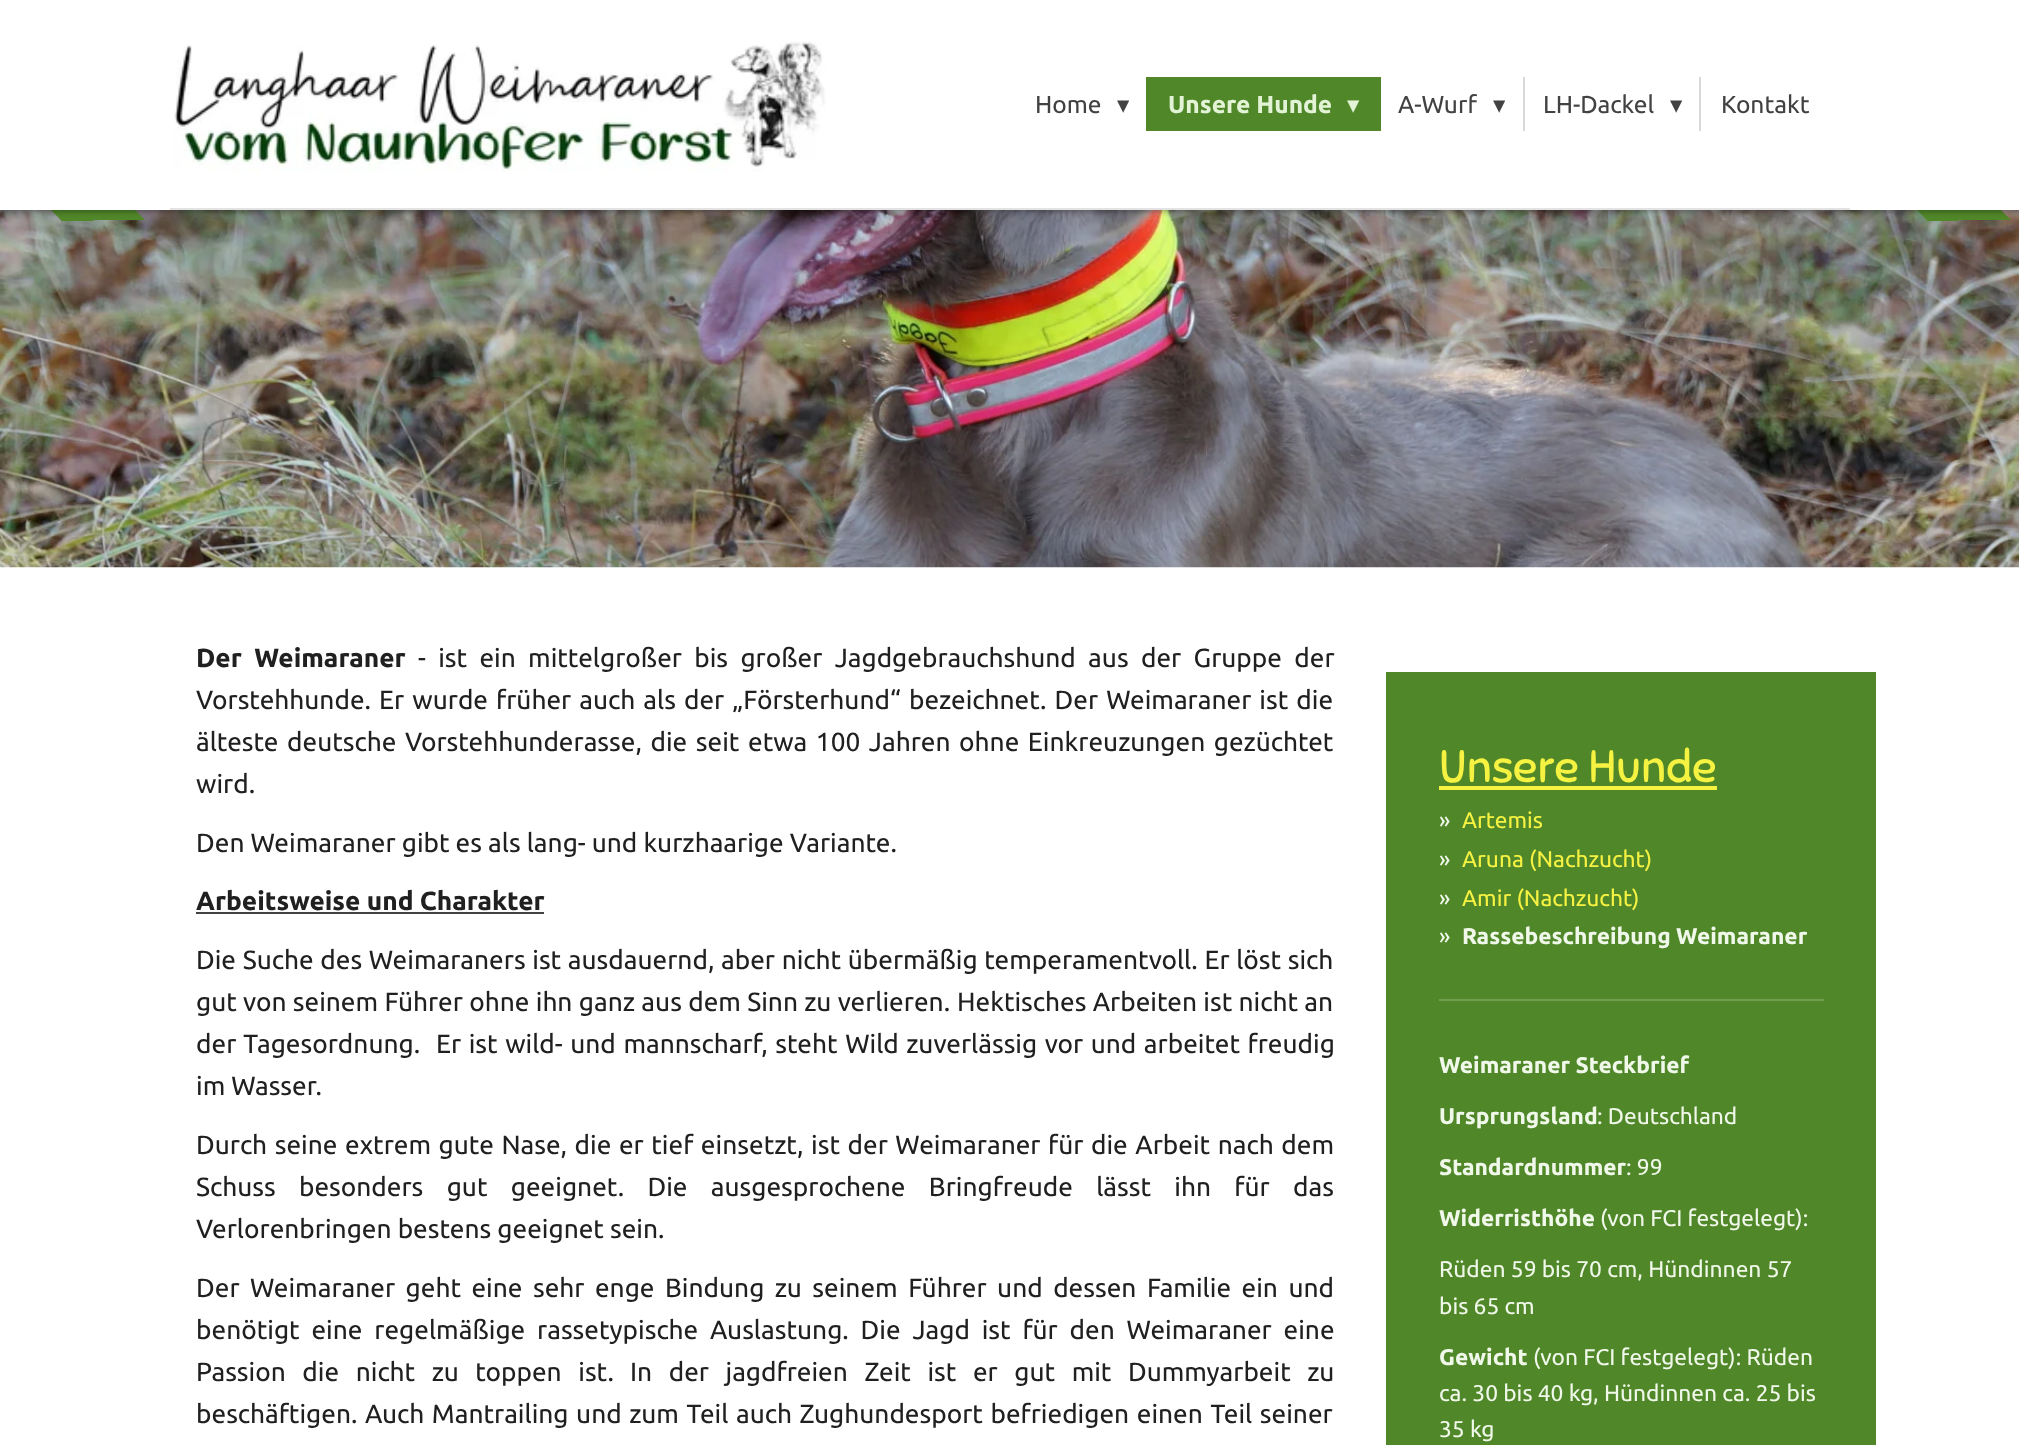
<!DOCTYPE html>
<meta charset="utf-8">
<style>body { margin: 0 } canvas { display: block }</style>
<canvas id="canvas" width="2019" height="1445"></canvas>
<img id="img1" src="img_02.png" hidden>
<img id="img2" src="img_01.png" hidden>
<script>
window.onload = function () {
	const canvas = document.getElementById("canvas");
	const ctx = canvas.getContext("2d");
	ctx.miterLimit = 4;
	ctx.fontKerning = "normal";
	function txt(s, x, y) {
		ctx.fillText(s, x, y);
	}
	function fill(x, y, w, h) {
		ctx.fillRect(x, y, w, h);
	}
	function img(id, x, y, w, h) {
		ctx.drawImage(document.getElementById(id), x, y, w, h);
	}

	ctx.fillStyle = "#FFFFFF";
	fill(0, 0, 2019, 1445);
	img("img1", 0, 210, 2019, 358);
	ctx.fillStyle = "#508729";
	fill(61, 210, 32, 11);
	ctx.beginPath();
	ctx.moveTo(61, 168);
	ctx.lineTo(61, 220);
	ctx.lineTo(9, 168);
	ctx.closePath();
	ctx.fill();
	ctx.beginPath();
	ctx.moveTo(93, 220);
	ctx.lineTo(93, 168);
	ctx.lineTo(145, 220);
	ctx.closePath();
	ctx.fill();
	fill(1927, 210, 31, 11);
	ctx.beginPath();
	ctx.moveTo(1927, 168);
	ctx.lineTo(1927, 220);
	ctx.lineTo(1874, 168);
	ctx.closePath();
	ctx.fill();
	ctx.beginPath();
	ctx.moveTo(1958, 220);
	ctx.lineTo(1958, 168);
	ctx.lineTo(2011, 220);
	ctx.closePath();
	ctx.fill();
	ctx.fillStyle = "rgba(0, 0, 0, 0.3)";
	ctx.filter = "blur(2.5px)";
	ctx.beginPath();
	ctx.rect(0, 2, 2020, 210);
	ctx.fill();
	ctx.filter = "none";
	ctx.fillStyle = "#FFFFFF";
	fill(0, 0, 2019, 210);
	ctx.fillStyle = "#E3E3E3";
	fill(170, 208, 1680, 2);
	img("img2", 174, 41, 652, 131);
	ctx.fillStyle = "#508729";
	fill(1146, 77, 235, 54);
	ctx.fillStyle = "#D9D9D9";
	fill(1523, 77, 2, 54);
	fill(1699, 77, 2, 54);
	ctx.fillStyle = "#424242";
	fill(196, 912, 348, 2);
	ctx.fillStyle = "#508729";
	fill(1386, 672, 490, 773);
	ctx.fillStyle = "#F6F242";
	fill(1439, 786, 278, 4);
	ctx.fillStyle = "#709E50";
	fill(1439, 999, 385, 2);
	ctx.font = "24.5px Ubuntu";
	ctx.fillStyle = "#424242";
	txt("Home", 1035, 113);
	ctx.font = "24.5px DejaVu Sans";
	txt("▾", 1117, 113);
	ctx.font = "bold 24.5px Ubuntu";
	ctx.fillStyle = "#E2F3D6";
	txt("Unsere Hunde", 1168, 113);
	ctx.font = "24.5px DejaVu Sans";
	txt("▾", 1347, 113);
	ctx.font = "24.5px Ubuntu";
	ctx.fillStyle = "#424242";
	txt("A-Wurf", 1398, 113);
	ctx.font = "24.5px DejaVu Sans";
	txt("▾", 1493, 113);
	ctx.font = "24.5px Ubuntu";
	txt("LH-Dackel", 1543, 113);
	ctx.font = "24.5px DejaVu Sans";
	txt("▾", 1670, 113);
	ctx.font = "24.5px Ubuntu";
	txt("Kontakt", 1721, 113);
	ctx.wordSpacing = "6.25px";
	ctx.font = "bold 26.25px Ubuntu";
	ctx.fillStyle = "#202020";
	txt("Der Weimaraner", 196, 667);
	ctx.font = "26.25px Ubuntu";
	txt("- ist ein mittelgroßer bis großer Jagdgebrauchshund aus der Gruppe der", 418, 667);
	ctx.wordSpacing = "2px";
	txt("Vorstehhunde. Er wurde früher auch als der „Försterhund“ bezeichnet. Der Weimaraner ist die", 196, 709);
	ctx.wordSpacing = "2.5px";
	txt("älteste deutsche Vorstehhunderasse, die seit etwa 100 Jahren ohne Einkreuzungen gezüchtet", 196, 751);
	ctx.wordSpacing = "0px";
	txt("wird.", 196, 793);
	txt("Den Weimaraner gibt es als lang- und kurzhaarige Variante.", 196, 852);
	ctx.font = "bold 26.25px Ubuntu";
	txt("Arbeitsweise und Charakter", 196, 910);
	ctx.wordSpacing = "0.6px";
	ctx.font = "26.25px Ubuntu";
	txt("Die Suche des Weimaraners ist ausdauernd, aber nicht übermäßig temperamentvoll. Er löst sich", 196, 969);
	ctx.wordSpacing = "0.25px";
	txt("gut von seinem Führer ohne ihn ganz aus dem Sinn zu verlieren.", 196, 1011);
	txt("Hektisches Arbeiten ist nicht an", 957, 1011);
	ctx.wordSpacing = "1px";
	txt("der Tagesordnung.", 196, 1053);
	ctx.wordSpacing = "1.5px";
	txt("Er ist wild- und mannscharf, steht Wild zuverlässig vor und arbeitet freudig", 436, 1053);
	ctx.wordSpacing = "0px";
	txt("im Wasser.", 196, 1095);
	ctx.wordSpacing = "1.5px";
	txt("Durch seine extrem gute Nase, die er tief einsetzt, ist der Weimaraner für die Arbeit nach dem", 196, 1154);
	ctx.wordSpacing = "17.25px";
	txt("Schuss besonders gut geeignet. Die ausgesprochene Bringfreude lässt ihn für das", 196, 1196);
	ctx.wordSpacing = "0px";
	txt("Verlorenbringen bestens geeignet sein.", 196, 1238);
	ctx.wordSpacing = "4.4px";
	txt("Der Weimaraner geht eine sehr enge Bindung zu seinem Führer und dessen Familie ein und", 196, 1297);
	ctx.wordSpacing = "5.75px";
	txt("benötigt eine regelmäßige rassetypische Auslastung. Die Jagd ist für den Weimaraner eine", 196, 1339);
	ctx.wordSpacing = "10.5px";
	txt("Passion die nicht zu toppen ist.", 196, 1381);
	txt("In der jagdfreien Zeit ist er gut mit Dummyarbeit zu", 630, 1381);
	ctx.wordSpacing = "1.5px";
	txt("beschäftigen. Auch Mantrailing und zum Teil auch Zughundesport befriedigen einen Teil seiner", 196, 1423);
	ctx.wordSpacing = "0px";
	ctx.font = "45.5px Sniglet";
	ctx.fillStyle = "#F6F242";
	txt("Unsere Hunde", 1439, 782);
	ctx.font = "22.75px Ubuntu";
	ctx.fillStyle = "#F0F8EA";
	txt("»", 1439, 828);
	ctx.fillStyle = "#F6F242";
	txt("Artemis", 1462, 828);
	ctx.fillStyle = "#F0F8EA";
	txt("»", 1439, 867);
	ctx.fillStyle = "#F6F242";
	txt("Aruna (Nachzucht)", 1462, 867);
	ctx.fillStyle = "#F0F8EA";
	txt("»", 1439, 906);
	ctx.fillStyle = "#F6F242";
	txt("Amir (Nachzucht)", 1462, 906);
	ctx.fillStyle = "#F0F8EA";
	txt("»", 1439, 944);
	ctx.font = "bold 22.75px Ubuntu";
	txt("Rassebeschreibung Weimaraner", 1462, 944);
	txt("Weimaraner Steckbrief", 1439, 1073);
	txt("Ursprungsland", 1439, 1124);
	ctx.font = "22.75px Ubuntu";
	txt(": Deutschland", 1597, 1124);
	ctx.font = "bold 22.75px Ubuntu";
	txt("Standardnummer", 1439, 1175);
	ctx.font = "22.75px Ubuntu";
	txt(": 99", 1626, 1175);
	ctx.font = "bold 22.75px Ubuntu";
	txt("Widerristhöhe", 1439, 1226);
	ctx.font = "22.75px Ubuntu";
	txt("(von FCI festgelegt):", 1600, 1226);
	txt("Rüden 59 bis 70 cm, Hündinnen 57", 1439, 1277);
	txt("bis 65 cm", 1439, 1314);
	ctx.font = "bold 22.75px Ubuntu";
	txt("Gewicht", 1439, 1365);
	ctx.font = "22.75px Ubuntu";
	txt("(von FCI festgelegt): Rüden", 1533, 1365);
	txt("ca. 30 bis 40 kg, Hündinnen ca. 25 bis", 1439, 1401);
	txt("35 kg", 1439, 1437);
};
</script>
